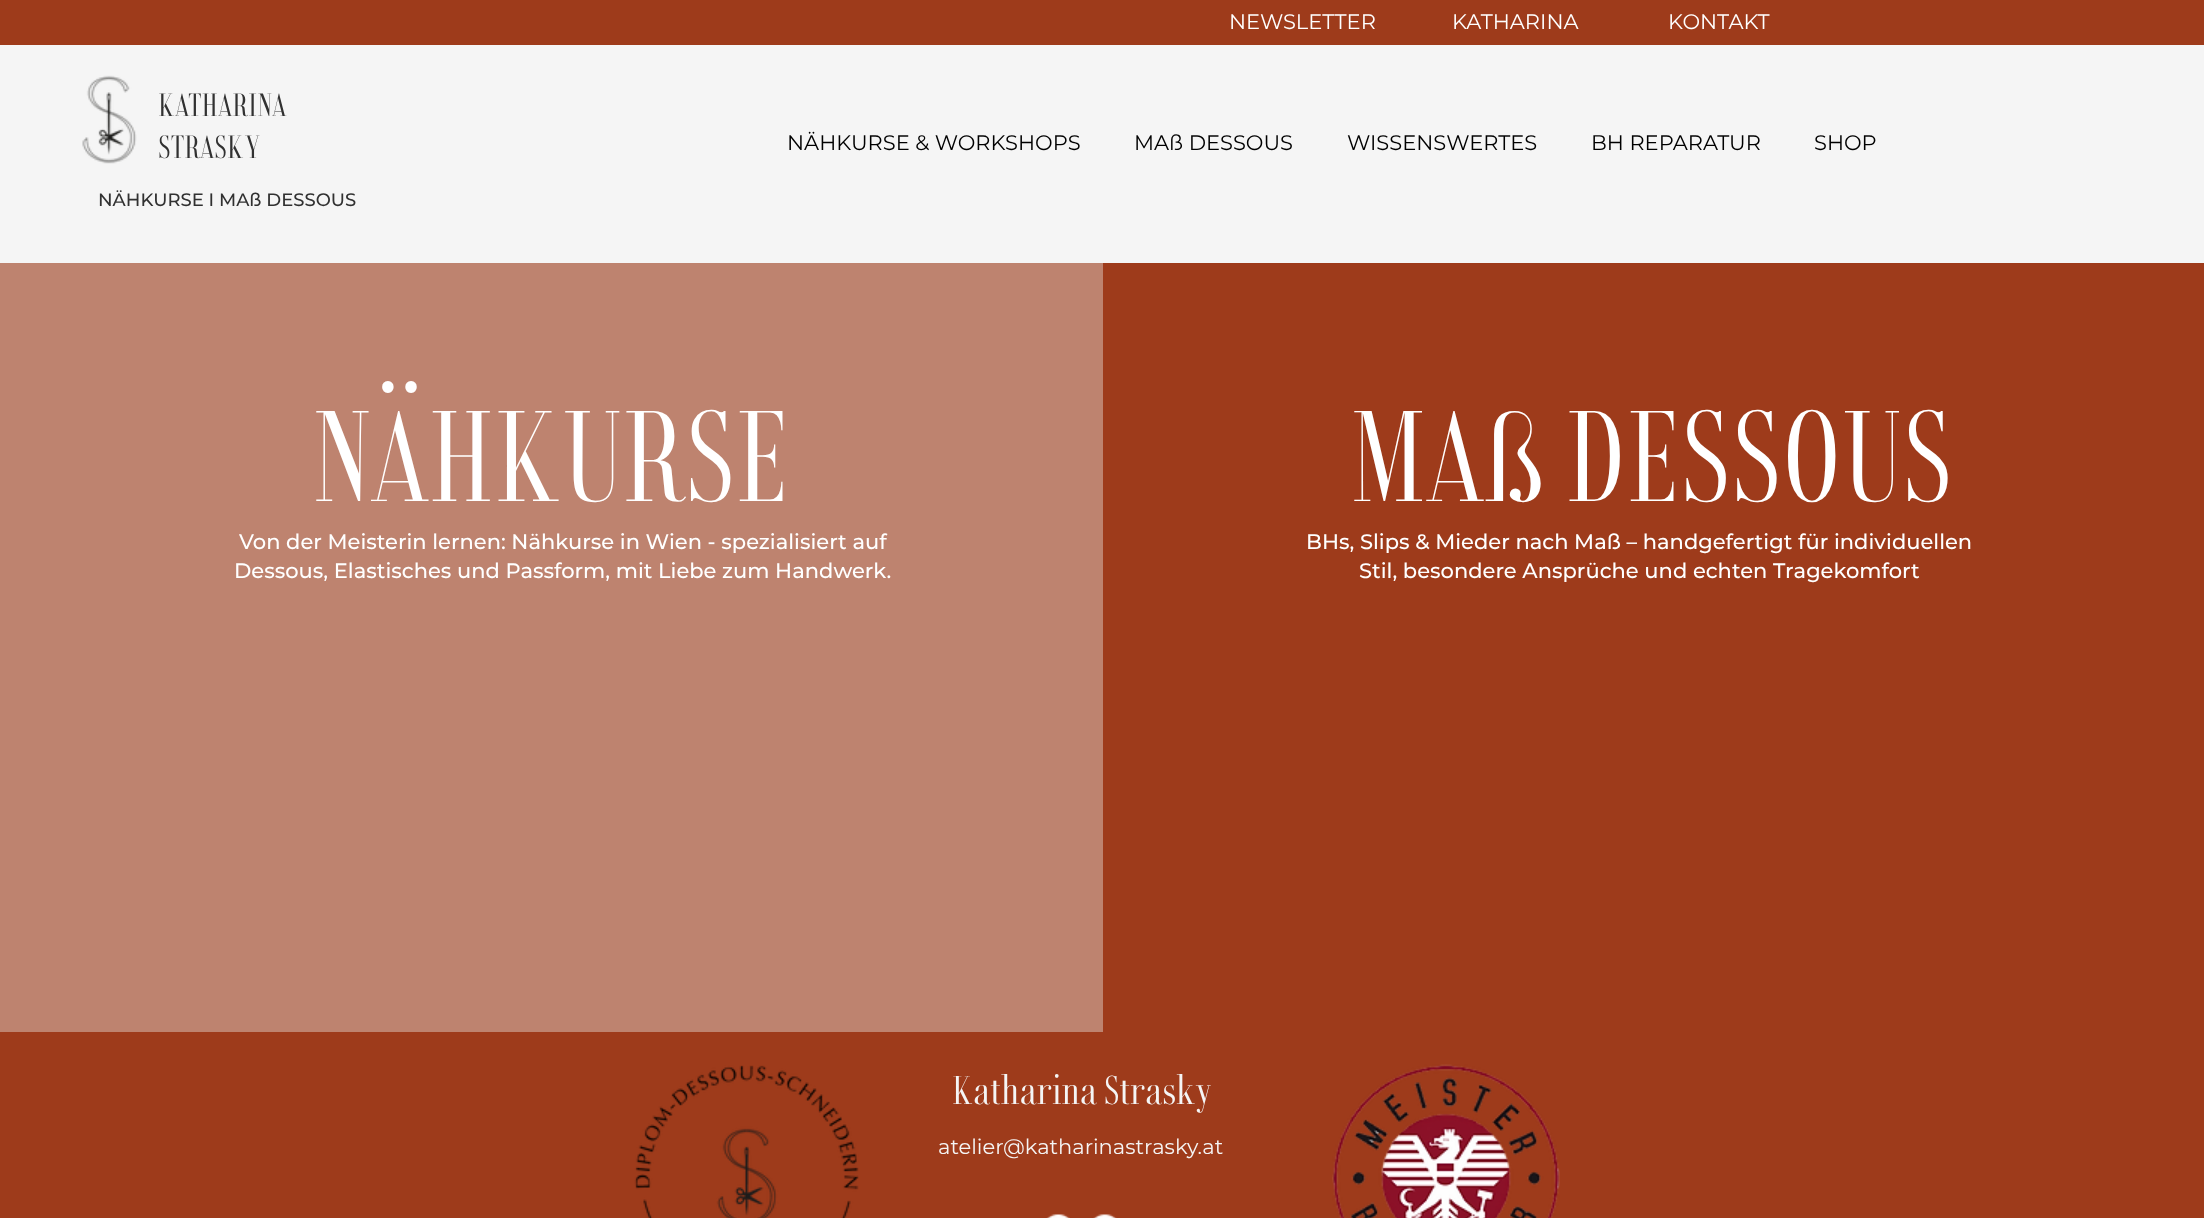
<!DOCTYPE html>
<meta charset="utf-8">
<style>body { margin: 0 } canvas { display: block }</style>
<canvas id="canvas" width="2204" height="1218"></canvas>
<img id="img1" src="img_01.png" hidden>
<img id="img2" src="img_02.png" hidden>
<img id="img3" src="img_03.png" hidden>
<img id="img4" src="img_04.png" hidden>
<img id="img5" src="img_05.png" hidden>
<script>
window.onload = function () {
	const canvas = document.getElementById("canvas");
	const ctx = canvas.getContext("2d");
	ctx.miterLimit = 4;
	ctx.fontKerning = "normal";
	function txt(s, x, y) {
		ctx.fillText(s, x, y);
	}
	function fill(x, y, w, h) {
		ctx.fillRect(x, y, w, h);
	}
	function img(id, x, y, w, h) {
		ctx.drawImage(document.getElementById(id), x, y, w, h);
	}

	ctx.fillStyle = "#BE836F";
	fill(0, 0, 2204, 1218);
	ctx.fillStyle = "#9E3B1B";
	fill(0, 0, 2204, 45);
	ctx.fillStyle = "#F5F5F5";
	fill(0, 45, 2204, 218);
	img("img1", 82, 75, 55, 89);
	ctx.fillStyle = "#9E3B1B";
	fill(1103, 263, 1101, 769);
	fill(0, 1032, 2204, 186);
	img("img2", 634, 1065, 225, 153);
	img("img3", 1332, 1064, 228, 154);
	img("img4", 1046, 1214, 24, 4);
	img("img5", 1093, 1214, 24, 4);
	ctx.font = "21px Montserrat";
	ctx.fillStyle = "#FFFFFF";
	txt("NEWSLETTER", 1229, 29);
	txt("KATHARINA", 1452, 29);
	txt("KONTAKT", 1668, 29);
	ctx.font = "30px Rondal";
	ctx.fillStyle = "#313131";
	txt("KATHARINA", 158, 116);
	txt("STRASKY", 158, 158);
	ctx.font = "500 18px Montserrat";
	txt("NÄHKURSE I MAß DESSOUS", 98, 206);
	ctx.font = "21px Montserrat";
	ctx.fillStyle = "#000000";
	txt("NÄHKURSE & WORKSHOPS", 787, 150);
	txt("MAß DESSOUS", 1134, 150);
	txt("WISSENSWERTES", 1347, 150);
	txt("BH REPARATUR", 1591, 150);
	txt("SHOP", 1814, 150);
	ctx.font = "120px Rondal";
	ctx.fillStyle = "#FFFFFF";
	txt("NÄHKURSE", 312, 501);
	ctx.font = "500 21px Montserrat";
	txt("Von der Meisterin lernen: Nähkurse in Wien - spezialisiert auf", 239, 549);
	txt("Dessous, Elastisches und Passform, mit Liebe zum Handwerk.", 234, 578);
	ctx.font = "120px Rondal";
	txt("MAß DESSOUS", 1350, 501);
	ctx.font = "500 21px Montserrat";
	txt("BHs, Slips & Mieder nach Maß – handgefertigt für individuellen", 1306, 549);
	txt("Stil, besondere Ansprüche und echten Tragekomfort", 1359, 578);
	ctx.font = "37.5px Rondal";
	ctx.fillStyle = "#F5F5F5";
	txt("Katharina Strasky", 952, 1104);
	ctx.font = "21px Montserrat";
	txt("atelier@katharinastrasky.at", 938, 1154);
};
</script>
